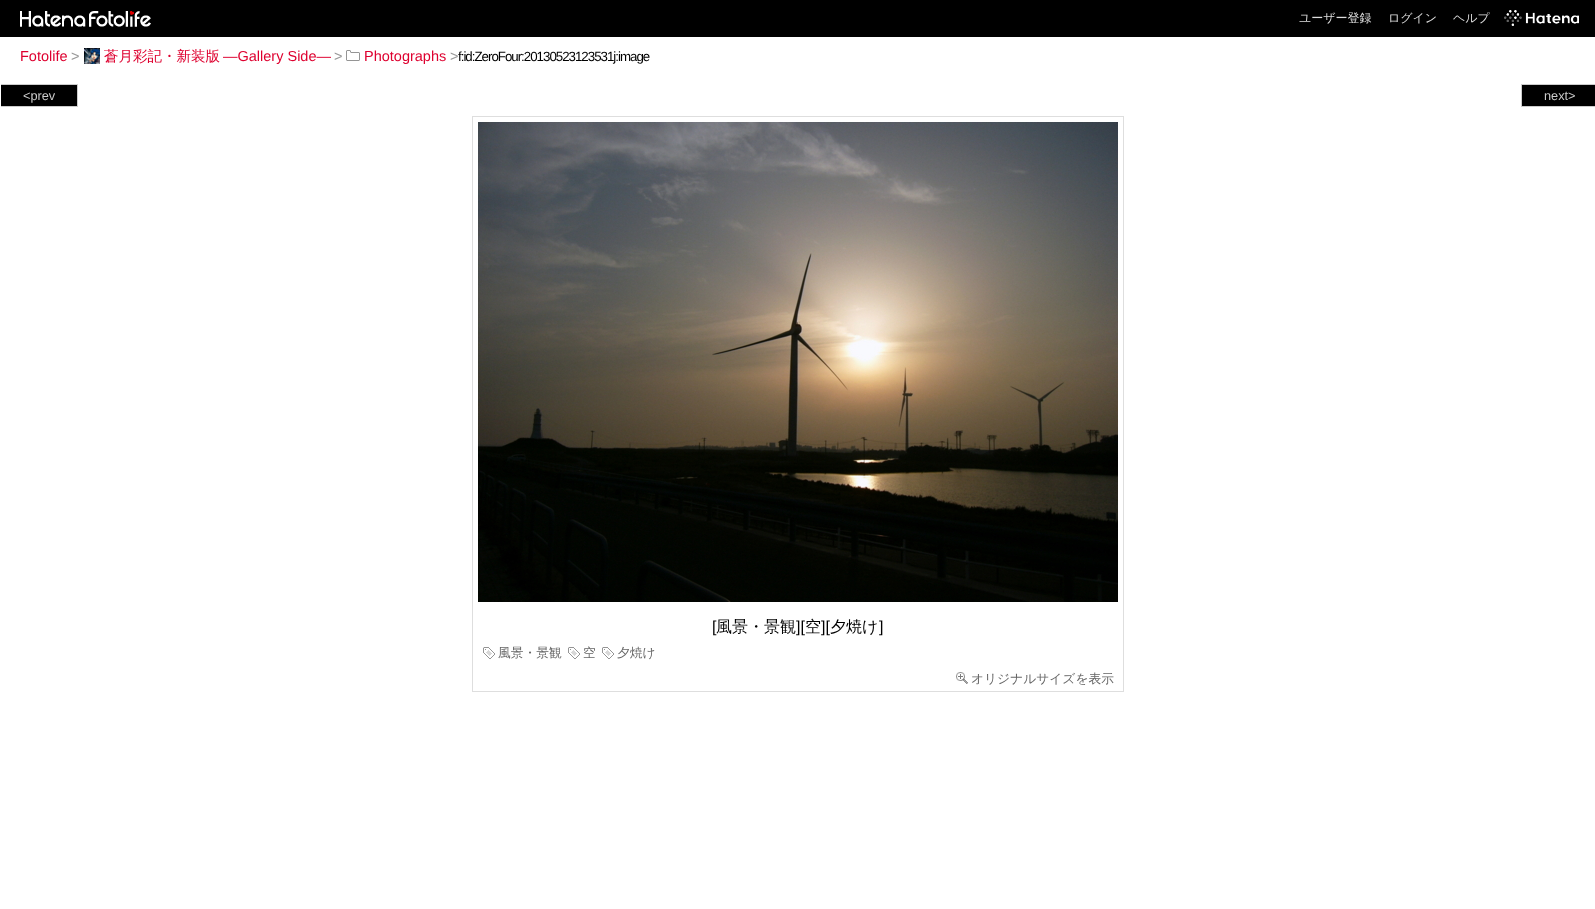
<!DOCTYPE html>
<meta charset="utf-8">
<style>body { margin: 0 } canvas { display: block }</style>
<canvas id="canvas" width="1595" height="909"></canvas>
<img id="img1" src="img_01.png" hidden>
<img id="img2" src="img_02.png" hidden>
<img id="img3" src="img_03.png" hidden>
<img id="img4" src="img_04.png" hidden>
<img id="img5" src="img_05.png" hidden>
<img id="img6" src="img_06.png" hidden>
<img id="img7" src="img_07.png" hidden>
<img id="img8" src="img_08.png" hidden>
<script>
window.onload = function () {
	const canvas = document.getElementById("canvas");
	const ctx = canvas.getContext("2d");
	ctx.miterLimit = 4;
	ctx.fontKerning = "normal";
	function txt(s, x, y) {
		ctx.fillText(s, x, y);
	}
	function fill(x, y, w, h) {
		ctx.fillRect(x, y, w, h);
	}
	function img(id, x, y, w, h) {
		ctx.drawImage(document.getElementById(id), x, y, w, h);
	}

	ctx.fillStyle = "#FFFFFF";
	fill(0, 0, 1595, 909);
	ctx.fillStyle = "#000000";
	fill(0, 0, 1595, 37);
	img("img1", 20, 11, 66, 16);
	img("img2", 89, 11, 62, 16);
	img("img3", 1504, 10, 75, 16);
	img("img4", 84, 48, 16, 16);
	img("img5", 346, 50, 14, 11);
	fill(1, 85, 76, 21);
	ctx.fillStyle = "#CCCCCC";
	fill(1, 84, 77, 1);
	fill(77, 84, 1, 23);
	fill(1, 106, 77, 1);
	ctx.fillStyle = "#000000";
	fill(1522, 85, 73, 21);
	ctx.fillStyle = "#CCCCCC";
	fill(1521, 84, 74, 1);
	fill(1521, 106, 74, 1);
	fill(1521, 84, 1, 23);
	ctx.strokeStyle = "#DEDEDE";
	ctx.strokeRect(472.5, 116.5, 651, 575);
	img("img6", 478, 122, 640, 480);
	img("img7", 483, 647, 12, 12);
	img("img7", 568, 647, 12, 12);
	img("img7", 602, 647, 12, 12);
	img("img8", 956, 672, 12, 12);
	ctx.font = "500 12px WenQuanYi Zen Hei";
	ctx.fillStyle = "#DDDDDD";
	txt("ユーザー登録", 1299, 22);
	txt("ログイン", 1388, 22);
	txt("ヘルプ", 1453, 22);
	ctx.font = "14.5px Liberation Sans";
	ctx.fillStyle = "#DE002F";
	txt("Fotolife", 20, 61);
	ctx.fillStyle = "#999999";
	txt(">", 71, 61);
	ctx.font = "500 14.5px WenQuanYi Zen Hei";
	ctx.fillStyle = "#DE002F";
	txt("蒼月彩記・新装版", 104, 61);
	ctx.font = "14.5px Liberation Sans";
	txt("―Gallery Side―", 223, 61);
	ctx.fillStyle = "#999999";
	txt(">", 334, 61);
	ctx.fillStyle = "#DE002F";
	txt("Photographs", 364, 61);
	ctx.fillStyle = "#999999";
	txt(">", 450, 61);
	ctx.letterSpacing = "-1px";
	ctx.font = "13.3px Liberation Sans";
	ctx.fillStyle = "#000000";
	txt("f:id:ZeroFour:20130523123531j:image", 458, 61);
	ctx.letterSpacing = "0px";
	ctx.font = "12.75px Liberation Sans";
	ctx.fillStyle = "#CCCCCC";
	txt("<prev", 23, 100);
	txt("next>", 1544, 100);
	ctx.font = "16px Liberation Sans";
	ctx.fillStyle = "#000000";
	txt("[", 712, 632);
	ctx.font = "500 16px WenQuanYi Zen Hei";
	txt("風景・景観", 716, 632);
	ctx.font = "16px Liberation Sans";
	txt("][", 796, 632);
	ctx.font = "500 16px WenQuanYi Zen Hei";
	txt("空", 805, 632);
	ctx.font = "16px Liberation Sans";
	txt("][", 821, 632);
	ctx.font = "500 16px WenQuanYi Zen Hei";
	txt("夕焼け", 830, 632);
	ctx.font = "16px Liberation Sans";
	txt("]", 879, 632);
	ctx.font = "500 12.75px WenQuanYi Zen Hei";
	ctx.fillStyle = "#666666";
	txt("風景・景観", 498, 657);
	txt("空", 583, 657);
	txt("夕焼け", 617, 657);
	txt("オリジナルサイズを表示", 971, 683);
};
</script>
